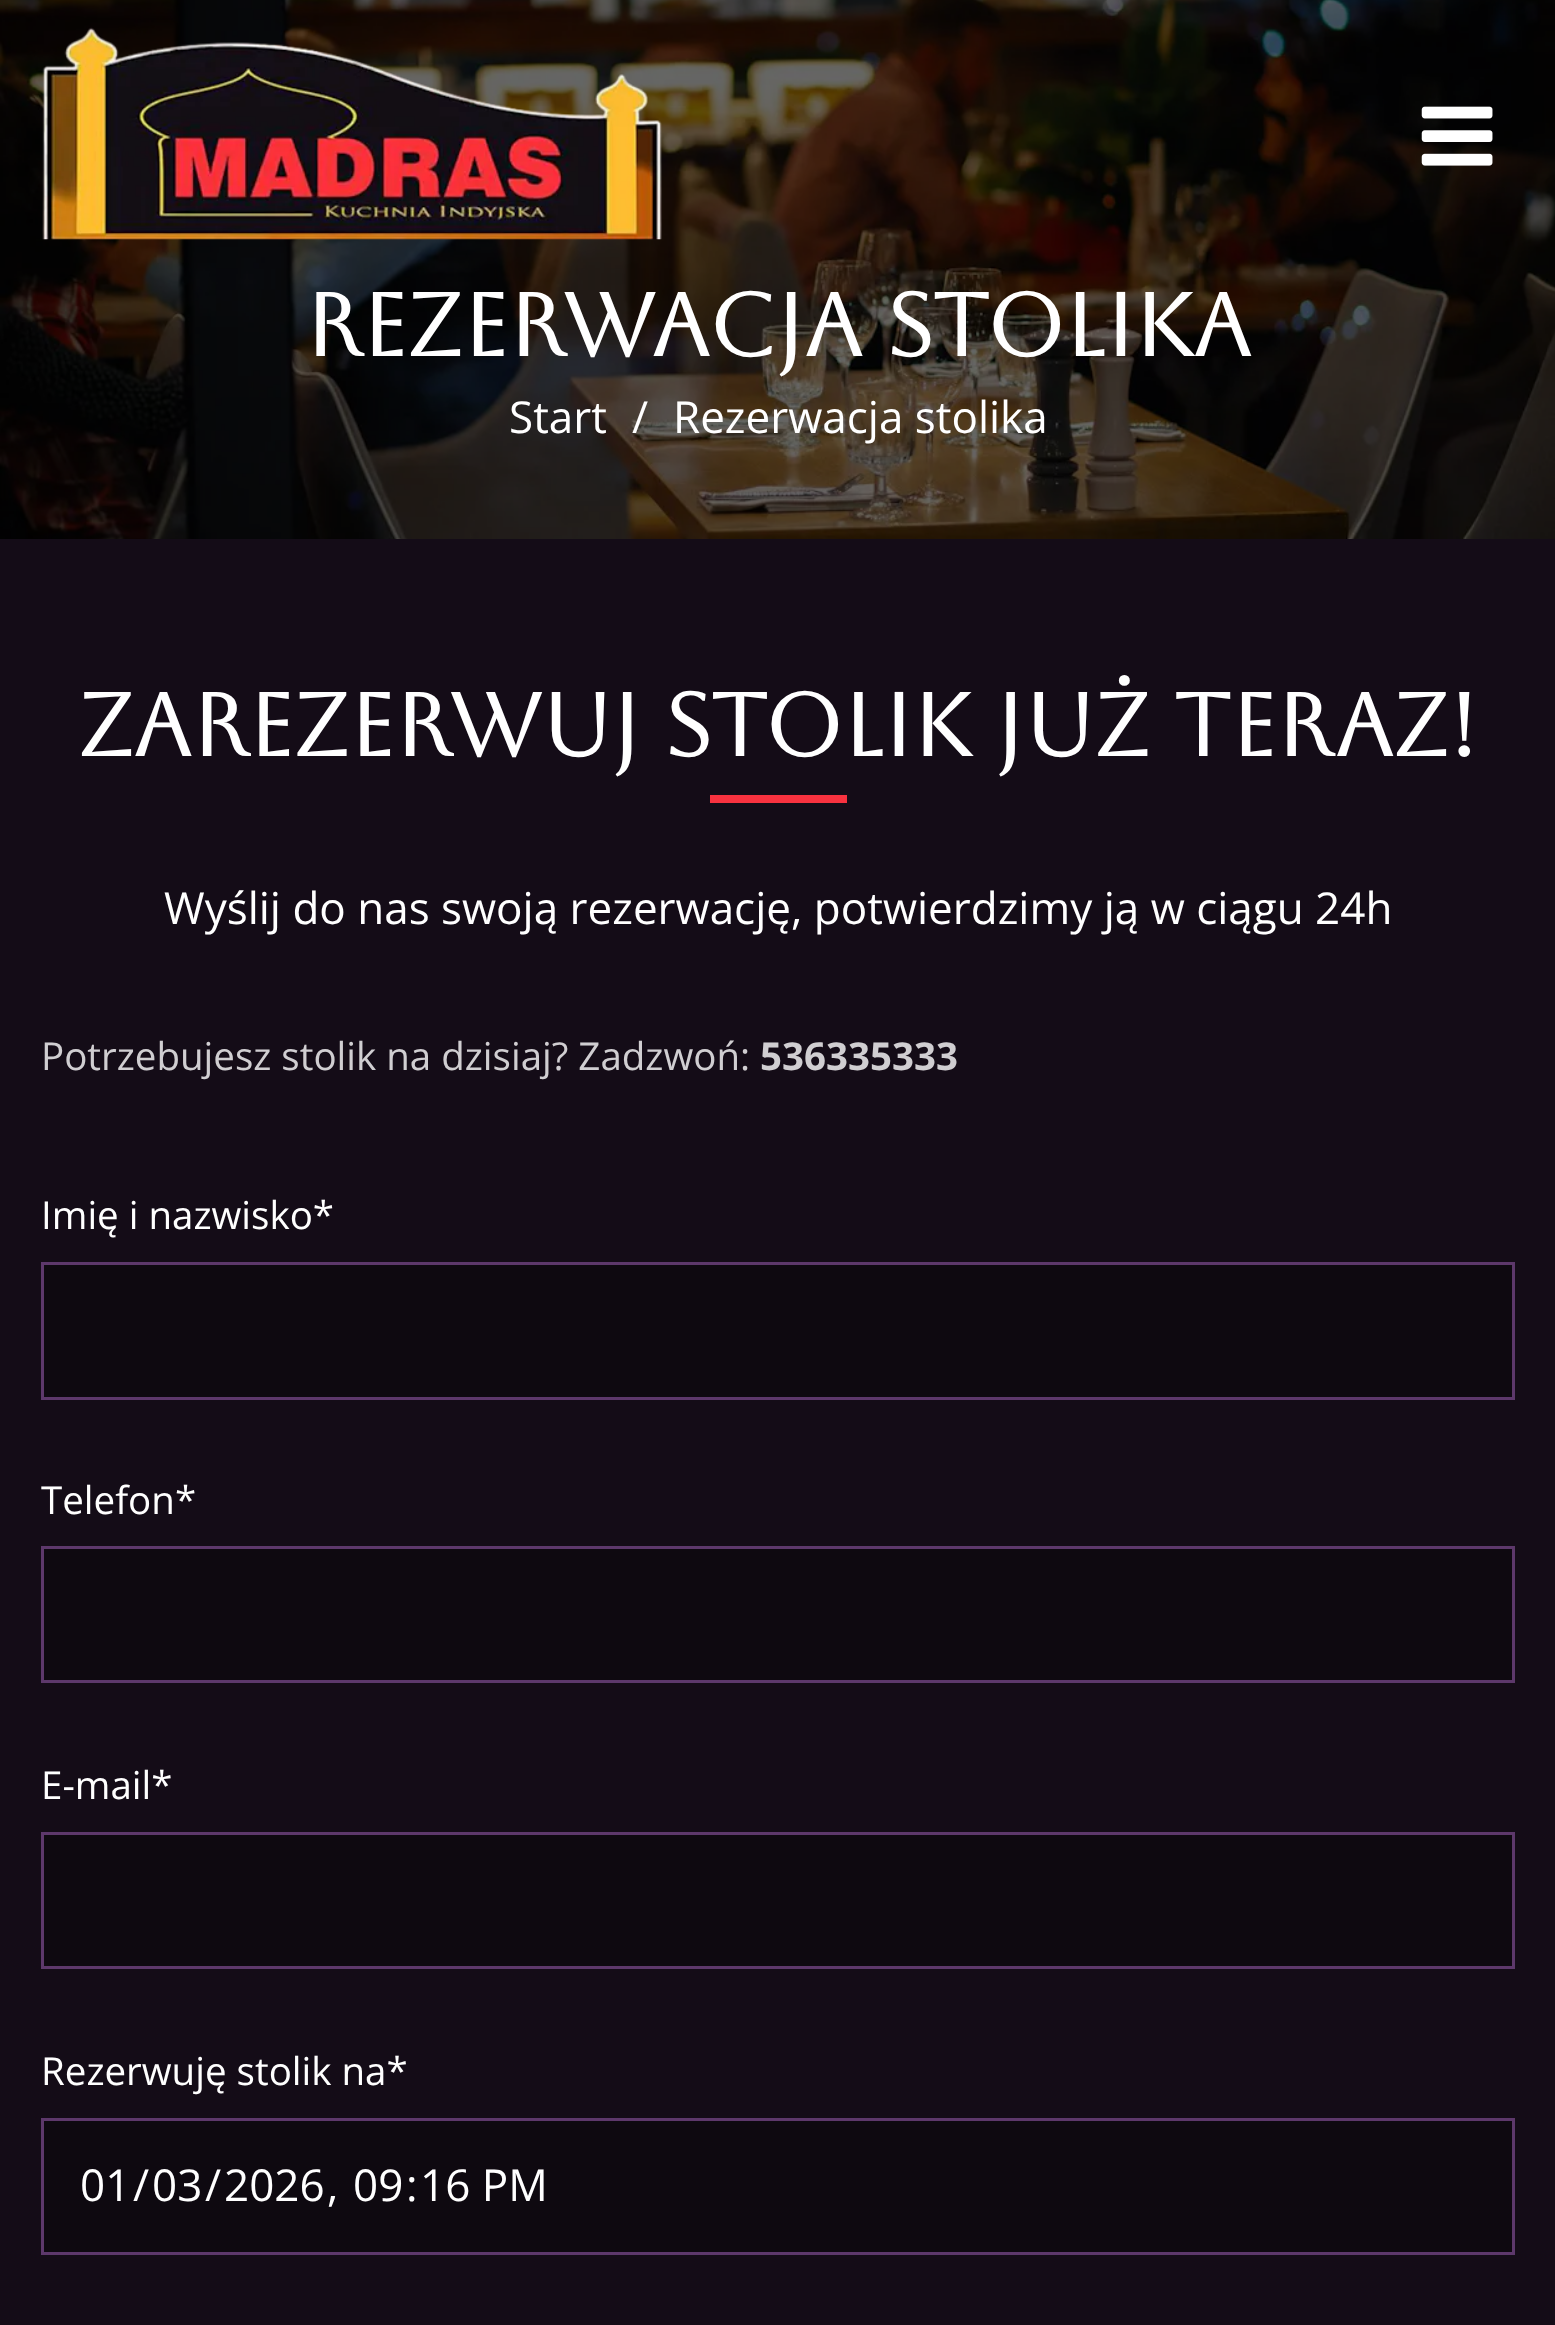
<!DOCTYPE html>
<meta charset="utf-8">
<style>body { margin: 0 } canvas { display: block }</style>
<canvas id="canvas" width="1555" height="2325"></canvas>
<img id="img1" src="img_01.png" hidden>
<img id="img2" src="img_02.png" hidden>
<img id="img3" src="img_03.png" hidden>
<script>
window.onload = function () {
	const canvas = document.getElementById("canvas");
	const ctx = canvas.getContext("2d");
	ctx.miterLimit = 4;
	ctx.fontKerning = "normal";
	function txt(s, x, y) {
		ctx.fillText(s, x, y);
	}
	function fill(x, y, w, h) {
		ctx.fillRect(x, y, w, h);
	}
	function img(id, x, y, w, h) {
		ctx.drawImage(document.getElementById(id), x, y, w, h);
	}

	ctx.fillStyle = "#140C17";
	fill(0, 0, 1555, 2325);
	ctx.fillStyle = "#000000";
	fill(0, 0, 1555, 539);
	img("img1", 0, 0, 1555, 539);
	img("img2", 42, 27, 620, 213);
	img("img3", 1421, 106, 72, 60);
	ctx.fillStyle = "#F8323F";
	fill(710, 795, 137, 8);
	ctx.fillStyle = "#0E0910";
	ctx.beginPath();
	ctx.rect(42.5, 1263.5, 1471, 135);
	ctx.fill();
	ctx.strokeStyle = "#5D386B";
	ctx.lineWidth = 3;
	ctx.stroke();
	ctx.beginPath();
	ctx.rect(42.5, 1547.5, 1471, 134);
	ctx.fill();
	ctx.stroke();
	ctx.beginPath();
	ctx.rect(42.5, 1833.5, 1471, 134);
	ctx.fill();
	ctx.stroke();
	ctx.beginPath();
	ctx.rect(42.5, 2119.5, 1471, 134);
	ctx.fill();
	ctx.stroke();
	ctx.font = "bold 88px Aboreto";
	ctx.fillStyle = "#FFFFFF";
	txt("REZERWACJA STOLIKA", 305, 356);
	ctx.font = "44px Open Sans";
	txt("Start", 509, 433);
	txt("/", 632, 433);
	txt("Rezerwacja stolika", 673, 433);
	ctx.font = "bold 88px Aboreto";
	txt("ZAREZERWUJ STOLIK JUŻ TERAZ!", 78, 756);
	ctx.font = "44px Open Sans";
	txt("Wyślij do nas swoją rezerwację, potwierdzimy ją w ciągu 24h", 164, 924);
	ctx.font = "38.5px Open Sans";
	ctx.fillStyle = "#D0CED1";
	txt("Potrzebujesz stolik na dzisiaj? Zadzwoń:", 41, 1070);
	ctx.font = "bold 38.5px Open Sans";
	txt("536335333", 760, 1070);
	ctx.font = "38.5px Open Sans";
	ctx.fillStyle = "#FFFFFF";
	txt("Imię i nazwisko*", 41, 1229);
	txt("Telefon*", 41, 1514);
	txt("E-mail*", 41, 1799);
	txt("Rezerwuję stolik na*", 41, 2085);
	ctx.font = "44px Open Sans";
	txt("01", 80, 2201);
	txt("/", 133, 2201);
	txt("03", 152, 2201);
	txt("/", 205, 2201);
	txt("2026", 224, 2201);
	txt(",", 327, 2201);
	txt("09", 353, 2201);
	txt(":", 406, 2201);
	txt("16 PM", 420, 2201);
};
</script>
